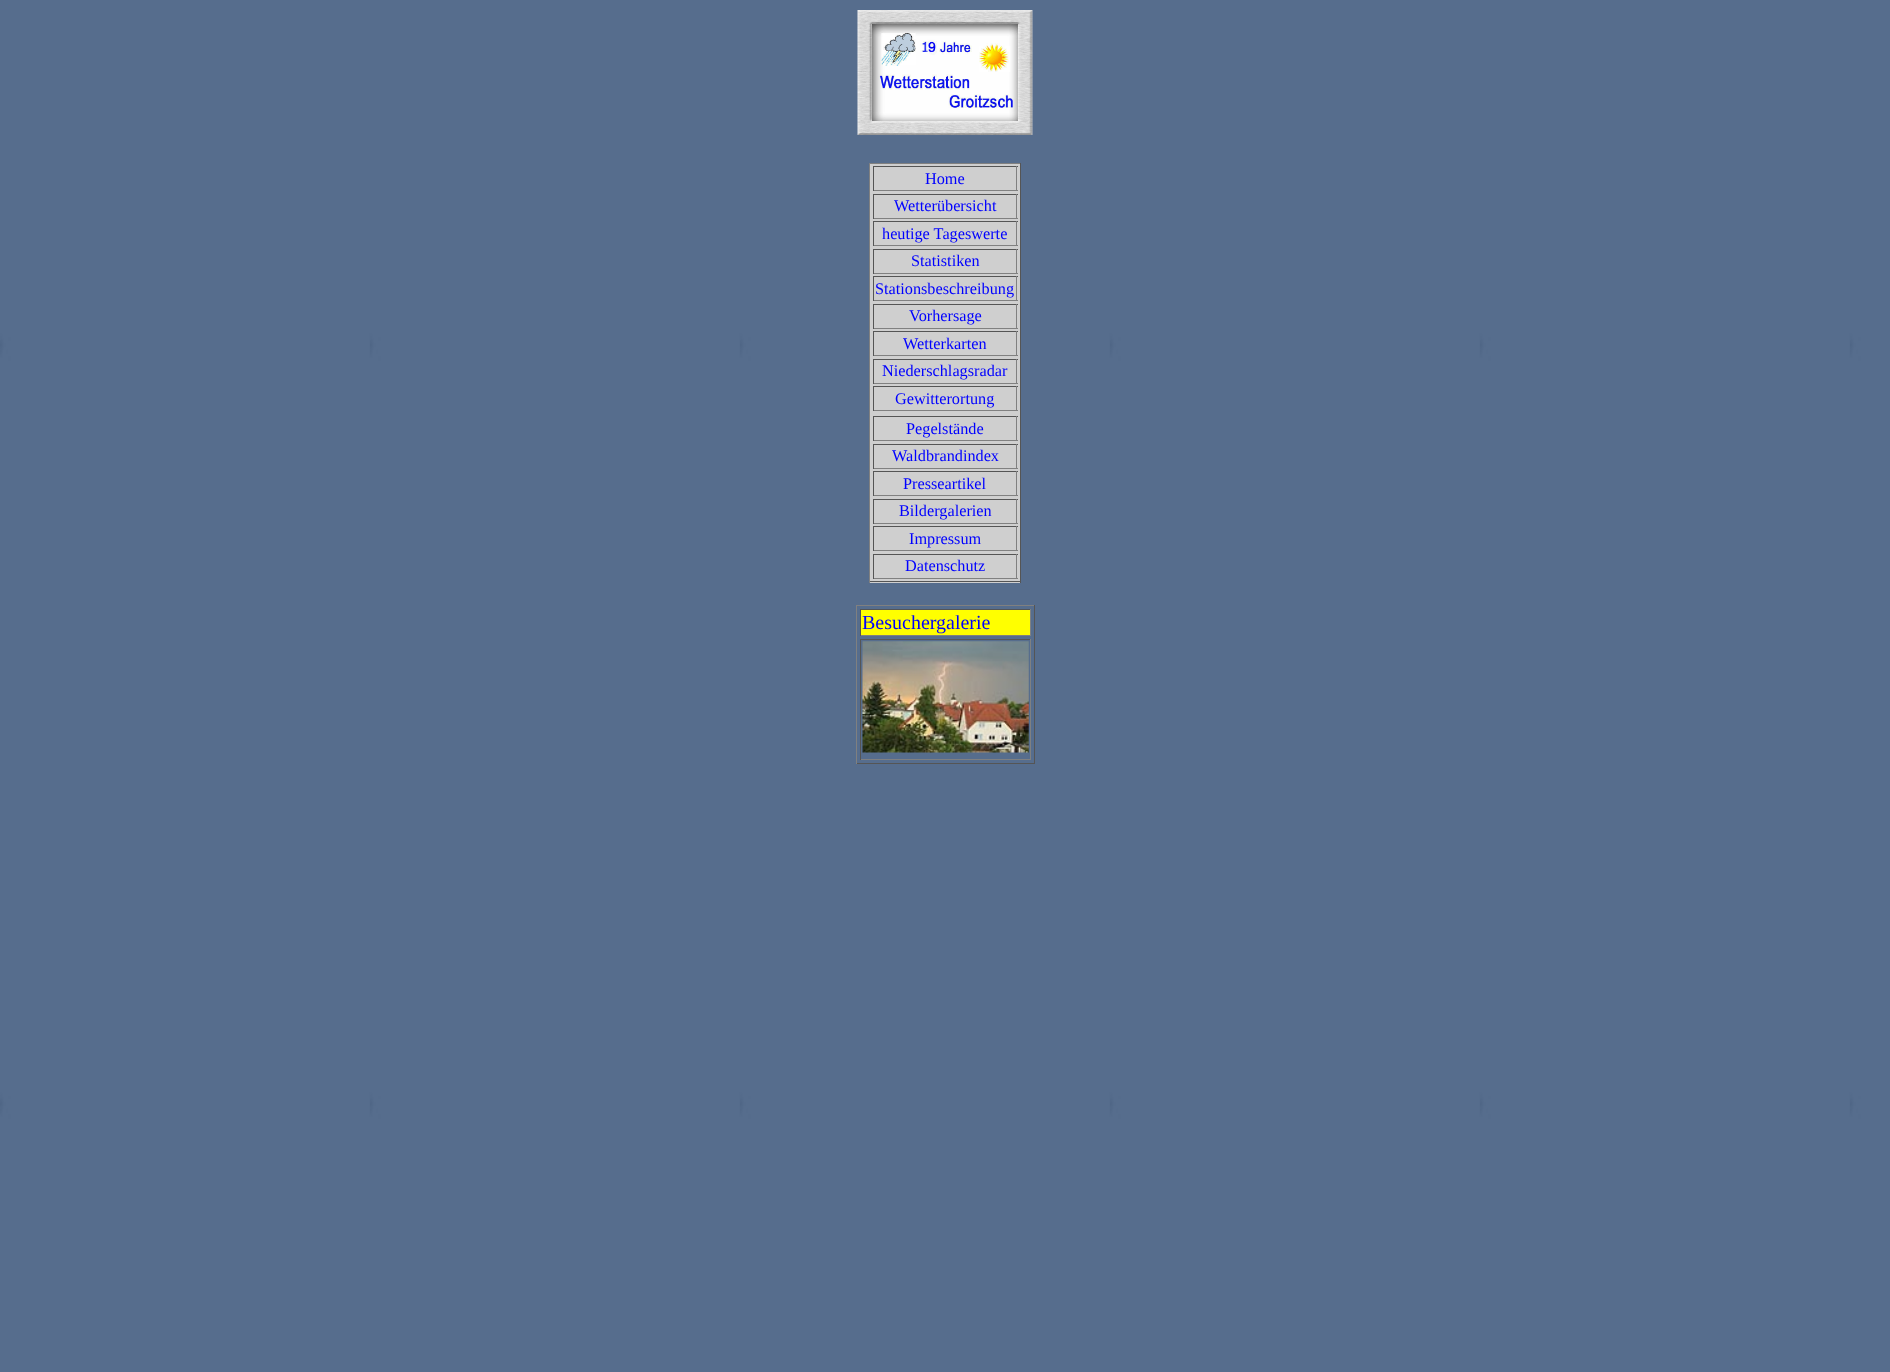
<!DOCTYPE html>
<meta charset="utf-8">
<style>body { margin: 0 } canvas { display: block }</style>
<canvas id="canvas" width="1890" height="1372"></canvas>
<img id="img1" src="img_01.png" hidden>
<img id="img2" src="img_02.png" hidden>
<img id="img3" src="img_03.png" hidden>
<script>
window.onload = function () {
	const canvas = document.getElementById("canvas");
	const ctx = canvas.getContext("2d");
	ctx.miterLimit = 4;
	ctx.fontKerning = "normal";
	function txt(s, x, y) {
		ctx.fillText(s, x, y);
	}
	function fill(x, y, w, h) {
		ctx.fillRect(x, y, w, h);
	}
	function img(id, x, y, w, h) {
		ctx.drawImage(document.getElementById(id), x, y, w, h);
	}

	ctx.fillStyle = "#FFFFFF";
	fill(0, 0, 1890, 1372);
	img("img1", 0, 0, 1890, 1372);
	img("img2", 857, 10, 176, 125);
	ctx.fillStyle = "#CFCFCF";
	fill(870, 164, 150, 419);
	ctx.fillStyle = "#808080";
	fill(869, 163, 152, 1);
	ctx.fillStyle = "#555555";
	fill(1020, 163, 1, 420);
	fill(869, 581, 152, 1);
	ctx.fillStyle = "#808080";
	fill(869, 163, 1, 420);
	ctx.fillStyle = "#555555";
	fill(873, 166, 145, 1);
	ctx.fillStyle = "#808080";
	fill(1016, 166, 1, 25);
	fill(873, 190, 145, 1);
	ctx.fillStyle = "#555555";
	fill(873, 166, 1, 25);
	fill(873, 194, 145, 1);
	ctx.fillStyle = "#808080";
	fill(1016, 194, 1, 25);
	fill(873, 218, 145, 1);
	ctx.fillStyle = "#555555";
	fill(873, 194, 1, 25);
	fill(873, 221, 145, 1);
	ctx.fillStyle = "#808080";
	fill(1016, 221, 1, 25);
	fill(873, 245, 145, 1);
	ctx.fillStyle = "#555555";
	fill(873, 221, 1, 25);
	fill(873, 249, 145, 1);
	ctx.fillStyle = "#808080";
	fill(1016, 249, 1, 25);
	fill(873, 273, 145, 1);
	ctx.fillStyle = "#555555";
	fill(873, 249, 1, 25);
	fill(873, 276, 145, 1);
	ctx.fillStyle = "#808080";
	fill(1016, 276, 1, 25);
	fill(873, 300, 145, 1);
	ctx.fillStyle = "#555555";
	fill(873, 276, 1, 25);
	fill(873, 304, 145, 1);
	ctx.fillStyle = "#808080";
	fill(1016, 304, 1, 25);
	fill(873, 328, 145, 1);
	ctx.fillStyle = "#555555";
	fill(873, 304, 1, 25);
	fill(873, 331, 145, 1);
	ctx.fillStyle = "#808080";
	fill(1016, 331, 1, 25);
	fill(873, 355, 145, 1);
	ctx.fillStyle = "#555555";
	fill(873, 331, 1, 25);
	fill(873, 359, 145, 1);
	ctx.fillStyle = "#808080";
	fill(1016, 359, 1, 25);
	fill(873, 383, 145, 1);
	ctx.fillStyle = "#555555";
	fill(873, 359, 1, 25);
	fill(873, 386, 145, 1);
	ctx.fillStyle = "#808080";
	fill(1016, 386, 1, 25);
	fill(873, 410, 145, 1);
	ctx.fillStyle = "#555555";
	fill(873, 386, 1, 25);
	fill(873, 416, 145, 1);
	ctx.fillStyle = "#808080";
	fill(1016, 416, 1, 25);
	fill(873, 440, 145, 1);
	ctx.fillStyle = "#555555";
	fill(873, 416, 1, 25);
	fill(873, 444, 145, 1);
	ctx.fillStyle = "#808080";
	fill(1016, 444, 1, 25);
	fill(873, 468, 145, 1);
	ctx.fillStyle = "#555555";
	fill(873, 444, 1, 25);
	fill(873, 471, 145, 1);
	ctx.fillStyle = "#808080";
	fill(1016, 471, 1, 25);
	fill(873, 495, 145, 1);
	ctx.fillStyle = "#555555";
	fill(873, 471, 1, 25);
	fill(873, 499, 145, 1);
	ctx.fillStyle = "#808080";
	fill(1016, 499, 1, 25);
	fill(873, 523, 145, 1);
	ctx.fillStyle = "#555555";
	fill(873, 499, 1, 25);
	fill(873, 526, 145, 1);
	ctx.fillStyle = "#808080";
	fill(1016, 526, 1, 25);
	fill(873, 550, 145, 1);
	ctx.fillStyle = "#555555";
	fill(873, 526, 1, 25);
	fill(873, 554, 145, 1);
	ctx.fillStyle = "#808080";
	fill(1016, 554, 1, 25);
	fill(873, 578, 145, 1);
	ctx.fillStyle = "#555555";
	fill(873, 554, 1, 25);
	ctx.fillStyle = "#808080";
	fill(856, 605, 179, 1);
	ctx.fillStyle = "#555555";
	fill(1034, 605, 1, 159);
	fill(856, 763, 179, 1);
	ctx.fillStyle = "#808080";
	fill(856, 605, 1, 159);
	ctx.fillStyle = "#FFFF00";
	fill(861, 610, 169, 25);
	ctx.fillStyle = "#555555";
	fill(860, 609, 171, 1);
	ctx.fillStyle = "#808080";
	fill(1030, 609, 1, 27);
	fill(860, 635, 171, 1);
	ctx.fillStyle = "#555555";
	fill(860, 609, 1, 27);
	fill(860, 639, 171, 1);
	ctx.fillStyle = "#808080";
	fill(1030, 639, 1, 121);
	fill(860, 759, 171, 1);
	ctx.fillStyle = "#555555";
	fill(860, 639, 1, 121);
	img("img3", 862, 641, 167, 112);
	ctx.font = "16.25px Liberation Serif";
	ctx.fillStyle = "#0000FF";
	txt("Home", 925, 184);
	txt("Wetterübersicht", 894, 211);
	txt("heutige Tageswerte", 882, 239);
	txt("Statistiken", 911, 266);
	txt("Stationsbeschreibung", 875, 294);
	txt("Vorhersage", 909, 321);
	txt("Wetterkarten", 903, 349);
	txt("Niederschlagsradar", 882, 376);
	txt("Gewitterortung", 895, 404);
	txt("Pegelstände", 906, 434);
	txt("Waldbrandindex", 892, 461);
	txt("Presseartikel", 903, 489);
	txt("Bildergalerien", 899, 516);
	txt("Impressum", 909, 544);
	txt("Datenschutz", 905, 571);
	ctx.font = "20px Liberation Serif";
	txt("Besuchergalerie", 862, 629);
};
</script>
